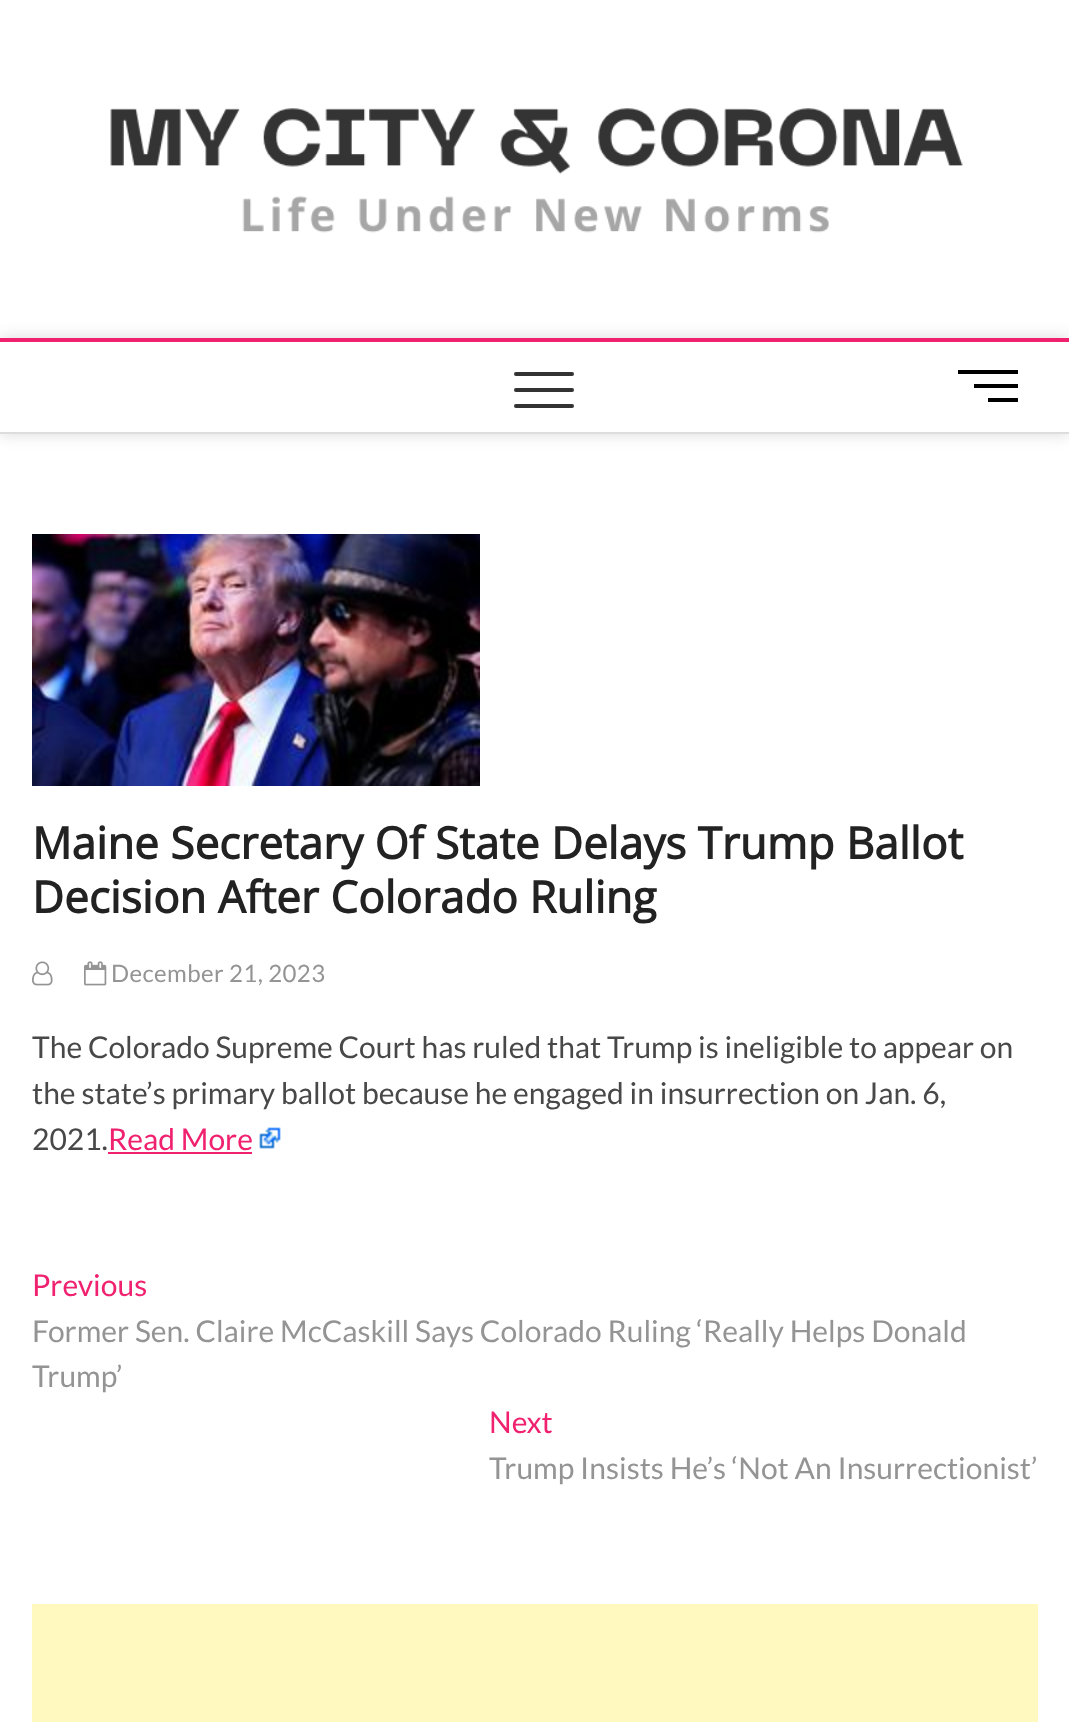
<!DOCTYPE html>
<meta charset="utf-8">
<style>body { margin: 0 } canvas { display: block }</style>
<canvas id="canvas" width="1069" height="1722"></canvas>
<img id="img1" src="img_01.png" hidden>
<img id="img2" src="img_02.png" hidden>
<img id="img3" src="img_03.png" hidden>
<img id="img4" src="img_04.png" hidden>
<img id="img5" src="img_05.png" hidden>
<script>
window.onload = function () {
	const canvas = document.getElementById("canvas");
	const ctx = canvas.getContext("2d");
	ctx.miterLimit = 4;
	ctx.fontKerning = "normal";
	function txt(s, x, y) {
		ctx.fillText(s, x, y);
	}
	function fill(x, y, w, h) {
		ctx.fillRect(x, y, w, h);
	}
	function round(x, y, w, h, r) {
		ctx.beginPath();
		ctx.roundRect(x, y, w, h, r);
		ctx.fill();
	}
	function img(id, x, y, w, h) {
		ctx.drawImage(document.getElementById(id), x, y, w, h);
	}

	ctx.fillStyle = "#FFFFFF";
	fill(0, 0, 1069, 1722);
	img("img1", 110, 108, 853, 125);
	ctx.save();
	ctx.beginPath();
	ctx.moveTo(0, 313);
	ctx.lineTo(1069, 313);
	ctx.lineTo(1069, 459);
	ctx.lineTo(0, 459);
	ctx.closePath();
	ctx.moveTo(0, 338);
	ctx.lineTo(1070, 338);
	ctx.lineTo(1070, 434);
	ctx.lineTo(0, 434);
	ctx.closePath();
	ctx.clip("evenodd");
	ctx.fillStyle = "rgba(0, 0, 0, 0.15)";
	ctx.filter = "blur(8px)";
	ctx.beginPath();
	ctx.rect(0, 338, 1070, 96);
	ctx.fill();
	ctx.filter = "none";
	ctx.restore();
	ctx.fillStyle = "#F0216F";
	fill(0, 338, 1069, 4);
	ctx.fillStyle = "#DDDDDD";
	fill(0, 432, 1069, 2);
	ctx.fillStyle = "#333333";
	round(514, 388, 60, 4, 2);
	round(514, 372, 60, 4, 2);
	round(514, 404, 60, 4, 2);
	ctx.fillStyle = "#000000";
	fill(974, 384, 44, 4);
	fill(958, 370, 60, 4);
	fill(988, 398, 30, 4);
	img("img2", 32, 534, 448, 252);
	img("img3", 32, 961, 21, 25);
	img("img4", 84, 961, 23, 25);
	ctx.fillStyle = "#F0216F";
	fill(108, 1152, 144, 2);
	img("img5", 259, 1127, 22, 22);
	ctx.fillStyle = "#FFF9C0";
	fill(32, 1604, 1006, 118);
	ctx.font = "bold 44px Open Sans";
	ctx.fillStyle = "#222222";
	txt("Maine Secretary Of State Delays Trump Ballot", 32, 859);
	txt("Decision After Colorado Ruling", 32, 913);
	ctx.letterSpacing = "0.4px";
	ctx.font = "24px Lato";
	ctx.fillStyle = "#949494";
	txt("December 21, 2023", 111, 982);
	ctx.letterSpacing = "0px";
	ctx.font = "30px Lato";
	ctx.fillStyle = "#484848";
	txt("The Colorado Supreme Court has ruled that Trump is ineligible to appear on", 32, 1058);
	txt("the state’s primary ballot because he engaged in insurrection on Jan. 6,", 32, 1104);
	txt("2021.", 32, 1150);
	ctx.fillStyle = "#F0216F";
	txt("Read More", 108, 1150);
	txt("Previous", 32, 1296);
	ctx.fillStyle = "#949494";
	txt("Former Sen. Claire McCaskill Says Colorado Ruling ‘Really Helps Donald", 32, 1342);
	txt("Trump’", 32, 1387);
	ctx.fillStyle = "#F0216F";
	txt("Next", 489, 1433);
	ctx.fillStyle = "#949494";
	txt("Trump Insists He’s ‘Not An Insurrectionist’", 489, 1479);
};
</script>
